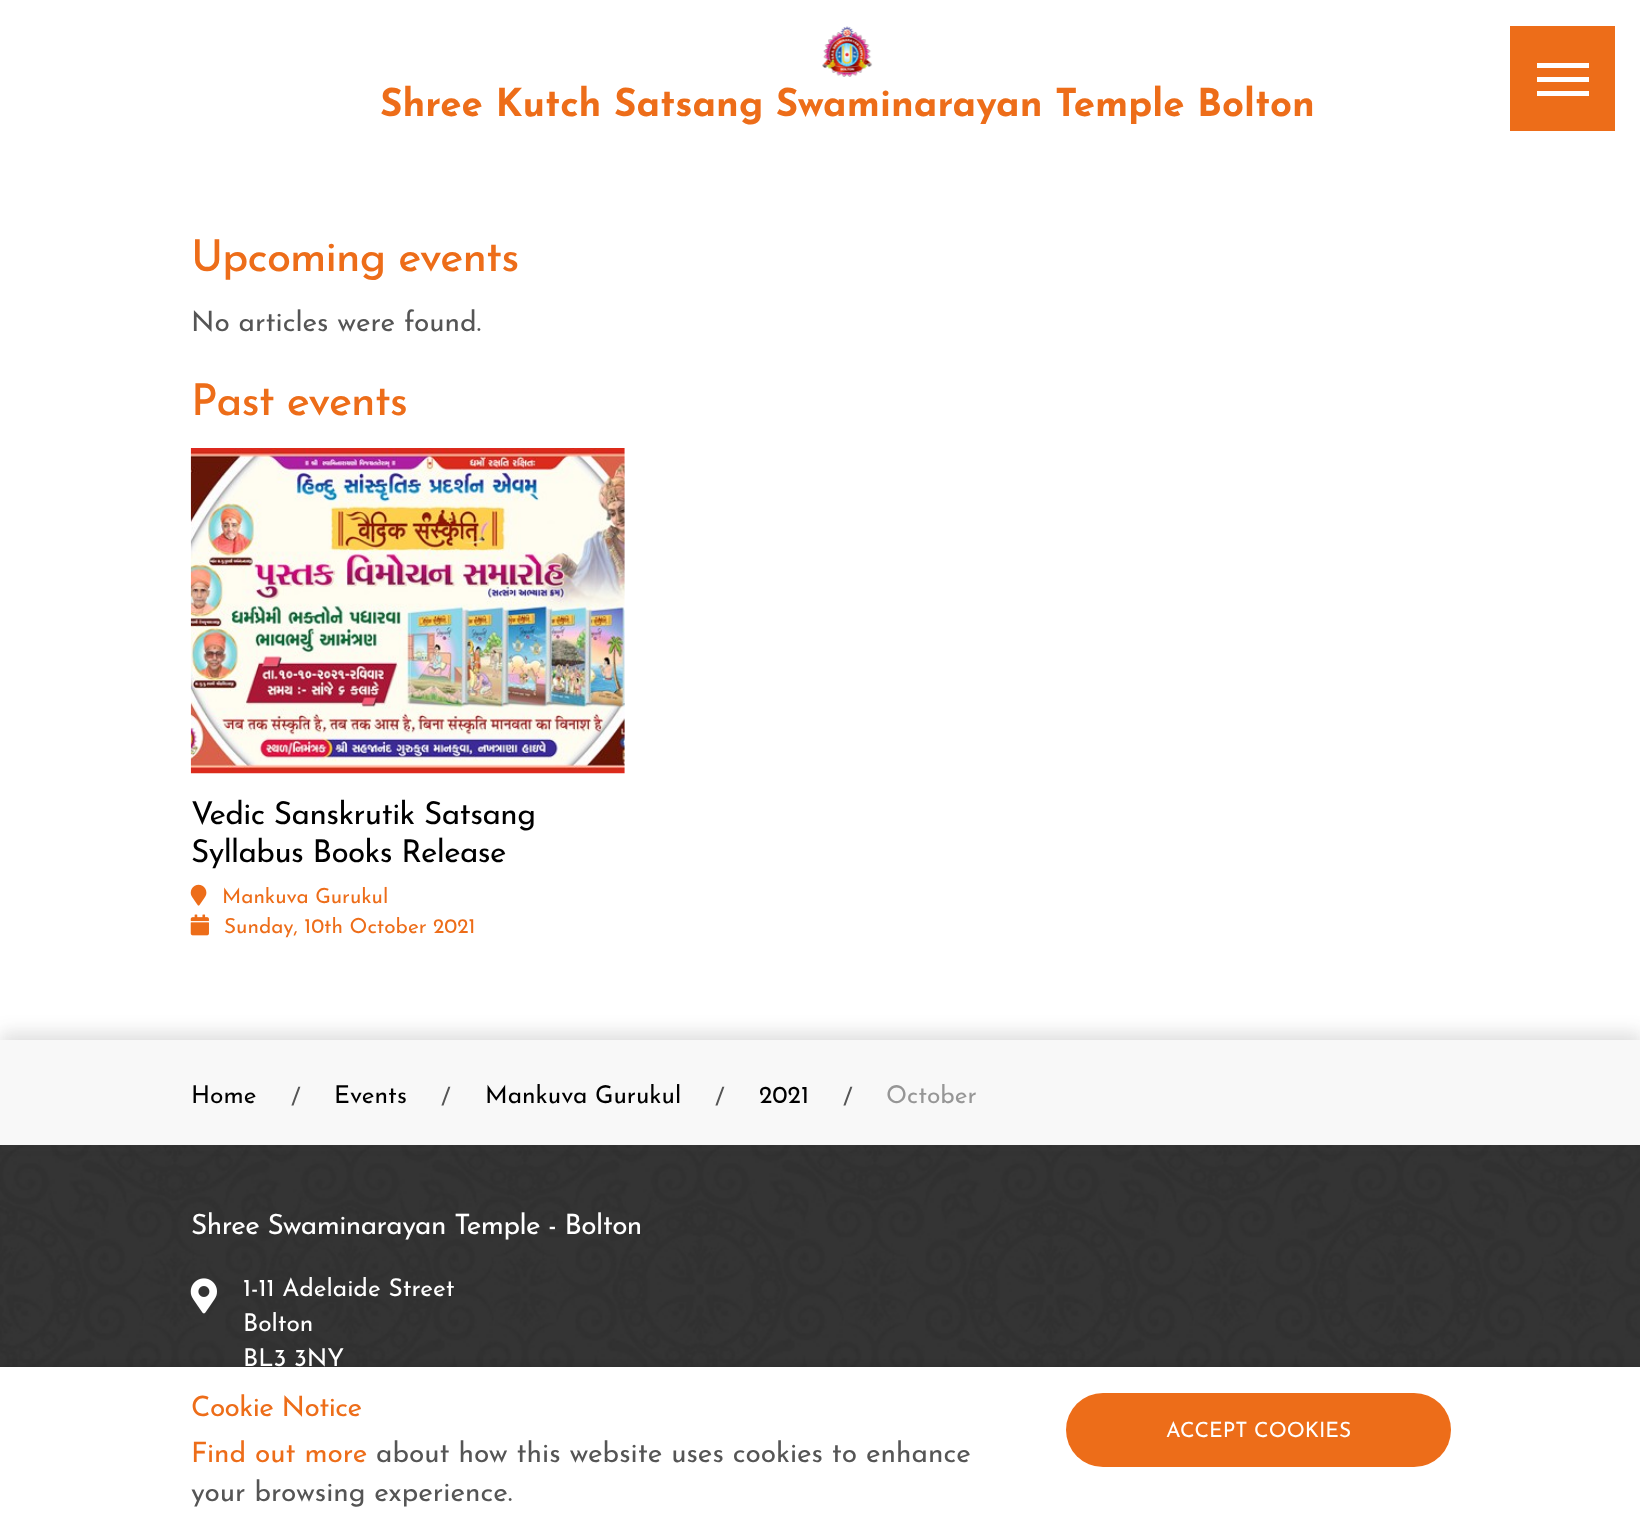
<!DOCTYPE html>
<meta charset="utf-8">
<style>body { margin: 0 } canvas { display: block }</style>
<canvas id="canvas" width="1640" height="1539"></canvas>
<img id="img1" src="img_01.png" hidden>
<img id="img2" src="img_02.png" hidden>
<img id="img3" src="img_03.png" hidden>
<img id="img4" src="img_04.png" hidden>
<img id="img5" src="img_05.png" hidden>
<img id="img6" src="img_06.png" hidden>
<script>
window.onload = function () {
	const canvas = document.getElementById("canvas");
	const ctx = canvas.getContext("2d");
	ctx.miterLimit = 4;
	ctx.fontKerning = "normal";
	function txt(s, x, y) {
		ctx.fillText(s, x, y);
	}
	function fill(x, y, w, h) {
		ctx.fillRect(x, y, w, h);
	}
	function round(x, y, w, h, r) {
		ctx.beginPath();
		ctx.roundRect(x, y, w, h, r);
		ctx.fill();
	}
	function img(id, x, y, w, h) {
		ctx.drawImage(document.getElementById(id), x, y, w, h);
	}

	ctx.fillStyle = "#FFFFFF";
	fill(0, 0, 1640, 1539);
	img("img1", 822, 26, 51, 51);
	ctx.fillStyle = "#ED6D19";
	fill(1510, 26, 105, 105);
	ctx.fillStyle = "#FFFFFF";
	fill(1537, 63, 52, 5);
	fill(1537, 77, 52, 5);
	fill(1537, 91, 52, 5);
	img("img2", 190, 448, 435, 326);
	img("img3", 190, 884, 17, 22);
	img("img4", 190, 914, 19, 22);
	img("img5", 0, 1145, 1640, 222);
	ctx.fillStyle = "rgba(50, 50, 50, 0.16)";
	ctx.filter = "blur(9px)";
	ctx.beginPath();
	ctx.rect(0, 1033, 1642, 105);
	ctx.fill();
	ctx.filter = "none";
	ctx.fillStyle = "#F8F8F8";
	fill(0, 1040, 1640, 105);
	img("img6", 190, 1278, 27, 36);
	ctx.fillStyle = "rgba(0, 0, 0, 0.1)";
	ctx.filter = "blur(4.5px)";
	ctx.beginPath();
	ctx.rect(0, 1367, 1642, 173);
	ctx.fill();
	ctx.filter = "none";
	ctx.fillStyle = "#FFFFFF";
	fill(0, 1367, 1640, 172);
	ctx.fillStyle = "#ED6D19";
	round(1066, 1393, 385, 74, 37);
	ctx.font = "bold 38.5px Josefin Sans";
	txt("Shree Kutch Satsang Swaminarayan Temple Bolton", 380, 116);
	ctx.letterSpacing = "-0.9px";
	ctx.font = "500 43.75px Josefin Sans";
	txt("Upcoming events", 191, 271);
	ctx.letterSpacing = "0px";
	ctx.font = "100 28px Josefin Sans";
	ctx.fillStyle = "#555555";
	txt("No articles were found.", 191, 331);
	ctx.letterSpacing = "-0.9px";
	ctx.font = "500 43.75px Josefin Sans";
	ctx.fillStyle = "#ED6D19";
	txt("Past events", 191, 415);
	ctx.letterSpacing = "-0.6px";
	ctx.font = "100 31.5px Josefin Sans";
	ctx.fillStyle = "#000000";
	txt("Vedic Sanskrutik Satsang", 191, 824);
	txt("Syllabus Books Release", 191, 862);
	ctx.letterSpacing = "0px";
	ctx.font = "100 20.75px Josefin Sans";
	ctx.fillStyle = "#ED6D19";
	txt("Mankuva Gurukul", 222, 903);
	txt("Sunday, 10th October 2021", 224, 933);
	ctx.font = "100 24.5px Josefin Sans";
	ctx.fillStyle = "#000000";
	txt("Home", 191, 1103);
	ctx.fillStyle = "#555555";
	txt("/", 291, 1105);
	ctx.fillStyle = "#000000";
	txt("Events", 334, 1103);
	ctx.fillStyle = "#555555";
	txt("/", 441, 1105);
	ctx.fillStyle = "#000000";
	txt("Mankuva Gurukul", 485, 1103);
	ctx.fillStyle = "#555555";
	txt("/", 715, 1105);
	ctx.fillStyle = "#000000";
	txt("2021", 759, 1103);
	ctx.fillStyle = "#555555";
	txt("/", 843, 1105);
	ctx.fillStyle = "#969696";
	txt("October", 886, 1103);
	ctx.letterSpacing = "-0.55px";
	ctx.font = "100 28px Josefin Sans";
	ctx.fillStyle = "#FFFFFF";
	txt("Shree Swaminarayan Temple - Bolton", 191, 1234);
	ctx.letterSpacing = "0px";
	ctx.font = "100 24.5px Josefin Sans";
	txt("1-11 Adelaide Street", 243, 1296);
	txt("Bolton", 243, 1331);
	txt("BL3 3NY", 243, 1366);
	ctx.letterSpacing = "-0.55px";
	ctx.font = "100 28px Josefin Sans";
	ctx.fillStyle = "#ED6D19";
	txt("Cookie Notice", 191, 1416);
	ctx.letterSpacing = "0px";
	txt("Find out more", 191, 1462);
	ctx.fillStyle = "#555555";
	txt("about how this website uses cookies to enhance", 376, 1462);
	txt("your browsing experience.", 191, 1501);
	ctx.font = "100 21px Josefin Sans";
	ctx.fillStyle = "#FFFFFF";
	txt("ACCEPT COOKIES", 1166, 1437);
};
</script>
